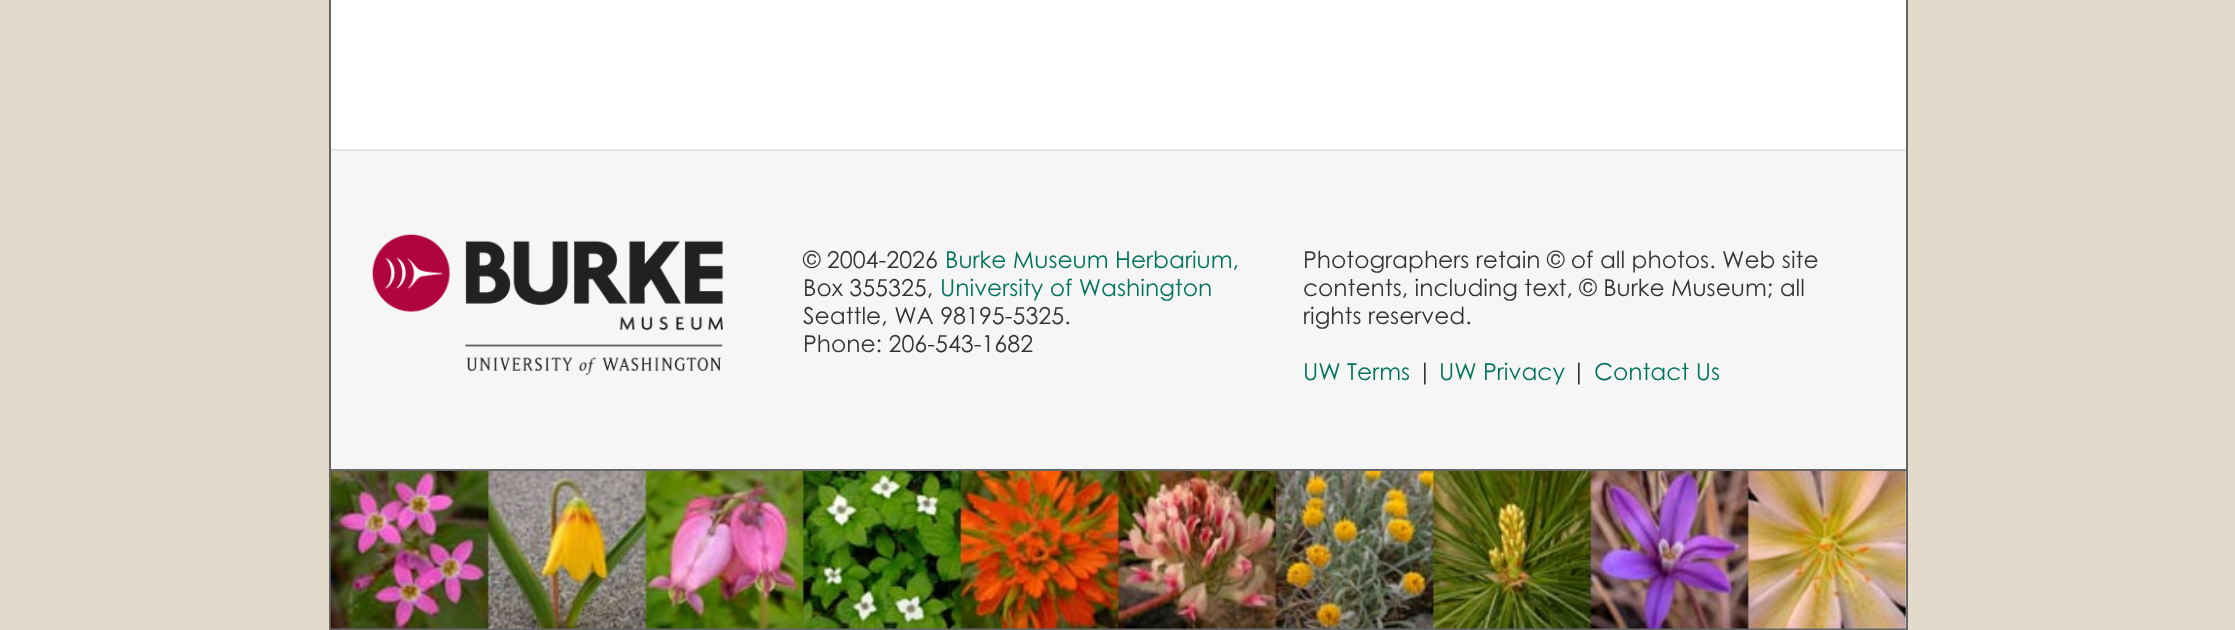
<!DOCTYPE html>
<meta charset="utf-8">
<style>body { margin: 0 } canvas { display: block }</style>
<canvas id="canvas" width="2235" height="630"></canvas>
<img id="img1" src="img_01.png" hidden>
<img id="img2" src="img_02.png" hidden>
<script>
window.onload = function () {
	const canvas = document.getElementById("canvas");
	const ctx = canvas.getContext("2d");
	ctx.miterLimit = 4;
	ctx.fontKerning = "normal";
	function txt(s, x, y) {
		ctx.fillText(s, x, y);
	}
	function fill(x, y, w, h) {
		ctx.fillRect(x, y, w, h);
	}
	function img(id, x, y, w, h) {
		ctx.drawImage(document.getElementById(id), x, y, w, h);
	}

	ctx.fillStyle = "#E4DACC";
	fill(0, 0, 2235, 630);
	ctx.fillStyle = "#FFFFFF";
	fill(331, 0, 1575, 628);
	ctx.fillStyle = "#666666";
	fill(1906, 0, 2, 630);
	fill(329, 628, 1579, 2);
	fill(329, 0, 2, 630);
	ctx.fillStyle = "#F6F6F6";
	fill(331, 151, 1575, 318);
	ctx.fillStyle = "#E6E6E6";
	fill(331, 149, 1575, 2);
	img("img1", 372, 234, 351, 141);
	img("img2", 330, 471, 1576, 158);
	ctx.fillStyle = "#666666";
	fill(331, 469, 1575, 2);
	ctx.font = "23.3px Century Gothic";
	ctx.fillStyle = "#333333";
	txt("© 2004-2026", 803, 268);
	ctx.fillStyle = "#00735C";
	txt("Burke Museum Herbarium,", 945, 268);
	ctx.fillStyle = "#333333";
	txt("Box 355325,", 803, 296);
	ctx.fillStyle = "#00735C";
	txt("University of Washington", 940, 296);
	ctx.fillStyle = "#333333";
	txt("Seattle, WA 98195-5325.", 803, 324);
	txt("Phone: 206-543-1682", 803, 352);
	txt("Photographers retain © of all photos. Web site", 1303, 268);
	txt("contents, including text, © Burke Museum; all", 1303, 296);
	txt("rights reserved.", 1303, 324);
	ctx.fillStyle = "#00735C";
	txt("UW Terms", 1303, 380);
	ctx.fillStyle = "#333333";
	txt("|", 1417, 380);
	ctx.fillStyle = "#00735C";
	txt("UW Privacy", 1439, 380);
	ctx.fillStyle = "#333333";
	txt("|", 1571, 380);
	ctx.fillStyle = "#00735C";
	txt("Contact Us", 1594, 380);
};
</script>
